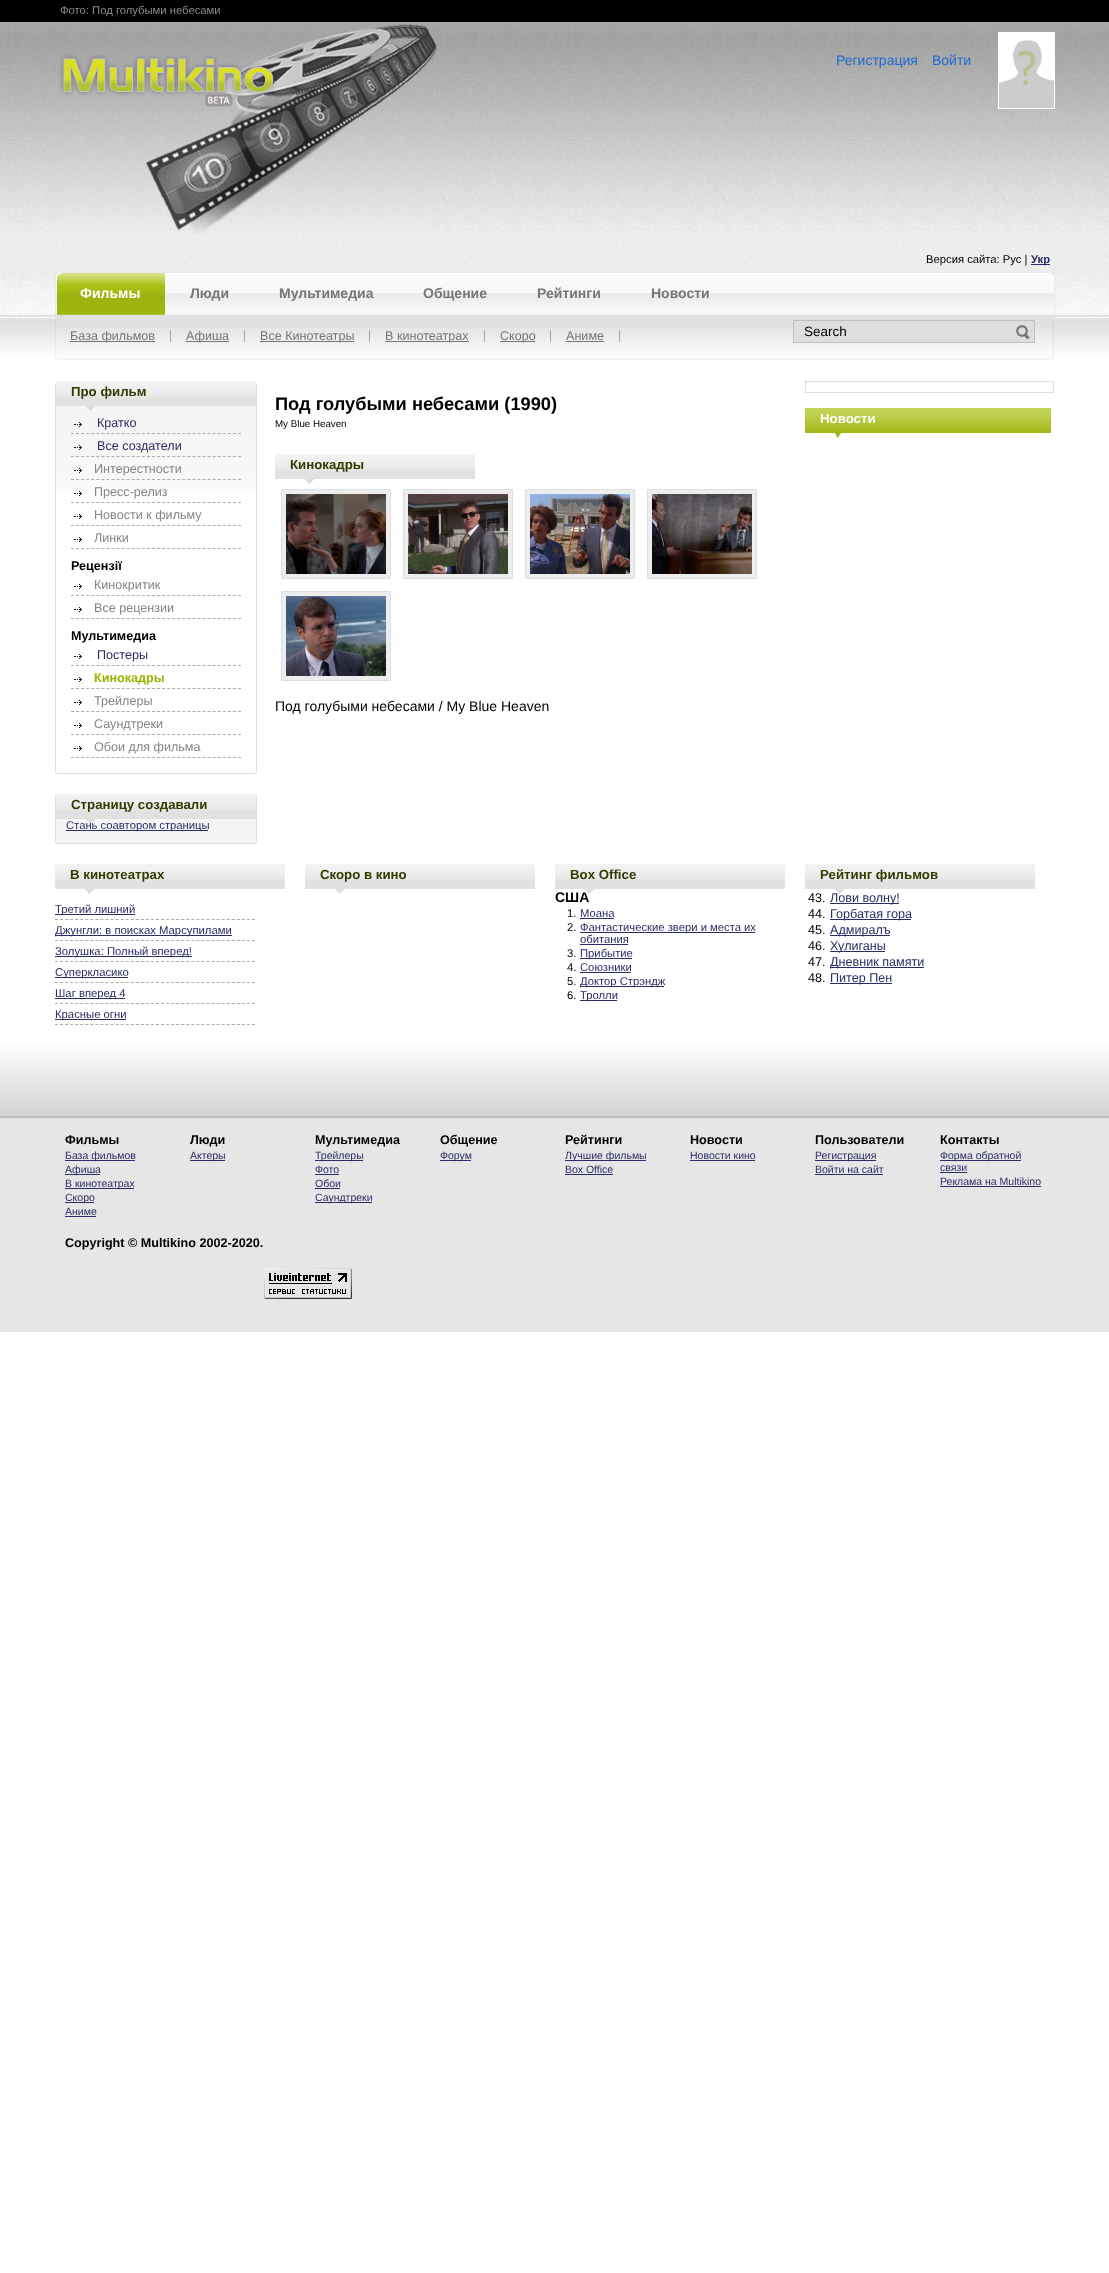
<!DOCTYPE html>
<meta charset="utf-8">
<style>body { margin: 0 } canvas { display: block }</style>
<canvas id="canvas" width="1109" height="2273"></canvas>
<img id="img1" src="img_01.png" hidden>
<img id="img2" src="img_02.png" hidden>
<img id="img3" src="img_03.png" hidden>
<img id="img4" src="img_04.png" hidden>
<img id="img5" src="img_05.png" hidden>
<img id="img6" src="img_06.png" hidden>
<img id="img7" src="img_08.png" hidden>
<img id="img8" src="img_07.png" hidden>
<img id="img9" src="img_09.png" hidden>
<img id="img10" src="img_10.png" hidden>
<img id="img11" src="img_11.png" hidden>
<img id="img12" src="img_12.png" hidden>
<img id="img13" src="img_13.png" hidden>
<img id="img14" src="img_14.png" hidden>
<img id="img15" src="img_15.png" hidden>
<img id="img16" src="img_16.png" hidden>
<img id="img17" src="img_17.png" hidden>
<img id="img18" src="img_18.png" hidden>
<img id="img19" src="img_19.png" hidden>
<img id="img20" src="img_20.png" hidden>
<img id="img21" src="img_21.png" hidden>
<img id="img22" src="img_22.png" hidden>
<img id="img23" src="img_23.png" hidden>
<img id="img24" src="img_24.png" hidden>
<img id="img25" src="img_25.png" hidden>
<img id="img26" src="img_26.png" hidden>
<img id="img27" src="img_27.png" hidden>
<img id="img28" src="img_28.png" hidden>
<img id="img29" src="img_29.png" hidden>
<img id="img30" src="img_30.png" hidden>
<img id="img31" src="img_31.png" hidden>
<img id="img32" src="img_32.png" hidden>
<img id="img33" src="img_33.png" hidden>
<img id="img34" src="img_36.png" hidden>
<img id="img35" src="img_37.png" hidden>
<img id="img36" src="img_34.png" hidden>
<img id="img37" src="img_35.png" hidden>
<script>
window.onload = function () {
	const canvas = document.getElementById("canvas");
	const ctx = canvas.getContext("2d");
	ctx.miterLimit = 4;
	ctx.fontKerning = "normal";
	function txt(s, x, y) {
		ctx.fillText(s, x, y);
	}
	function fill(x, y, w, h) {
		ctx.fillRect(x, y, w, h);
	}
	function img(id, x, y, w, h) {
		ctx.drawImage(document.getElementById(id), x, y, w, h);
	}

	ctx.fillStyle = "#FFFFFF";
	fill(0, 0, 1109, 2273);
	img("img1", 0, 236, 1109, 36);
	img("img2", 0, 0, 1109, 236);
	ctx.fillStyle = "#000000";
	fill(78, 21, 953, 1);
	img("img3", 55, 24, 382, 211);
	ctx.strokeStyle = "#FDFEFD";
	ctx.strokeRect(998.5, 32.5, 56, 76);
	img("img4", 999, 33, 55, 75);
	ctx.fillStyle = "#2C2C66";
	fill(1031, 264, 19, 1);
	img("img5", 0, 272, 1109, 83);
	ctx.fillStyle = "#E2E1E1";
	fill(55, 316, 1000, 9);
	img("img6", 61, 272, 992, 43);
	img("img7", 57, 273, 108, 42);
	img("img8", 55, 272, 6, 43);
	img("img9", 1049, 272, 6, 43);
	img("img10", 55, 328, 1000, 33);
	img("img11", 55, 321, 2, 39);
	ctx.fillStyle = "#A3A49A";
	fill(170, 330, 1, 12);
	ctx.fillStyle = "#757575";
	fill(70, 341, 85, 1);
	ctx.fillStyle = "#A3A49A";
	fill(244, 330, 1, 12);
	ctx.fillStyle = "#757575";
	fill(186, 341, 43, 1);
	ctx.fillStyle = "#A3A49A";
	fill(369, 330, 1, 12);
	ctx.fillStyle = "#757575";
	fill(260, 341, 94, 1);
	ctx.fillStyle = "#A3A49A";
	fill(484, 330, 1, 12);
	ctx.fillStyle = "#757575";
	fill(385, 341, 84, 1);
	ctx.fillStyle = "#A3A49A";
	fill(550, 330, 1, 12);
	ctx.fillStyle = "#757575";
	fill(500, 341, 35, 1);
	ctx.fillStyle = "#A3A49A";
	fill(619, 330, 1, 12);
	ctx.fillStyle = "#757575";
	fill(566, 341, 38, 1);
	ctx.fillStyle = "#DEDEDE";
	ctx.beginPath();
	ctx.rect(793.5, 320.5, 241, 22);
	ctx.fill();
	ctx.strokeStyle = "#BFBFBF";
	ctx.stroke();
	img("img12", 1016, 325, 14, 14);
	img("img13", 1052, 321, 3, 39);
	img("img14", 56, 406, 200, 86);
	ctx.fillStyle = "#DDDEDF";
	fill(256, 381, 1, 393);
	fill(55, 773, 202, 1);
	fill(55, 381, 1, 393);
	img("img15", 55, 381, 1, 3);
	img("img15", 256, 381, 1, 3);
	ctx.fillStyle = "#E2E1E1";
	fill(56, 398, 200, 8);
	img("img16", 56, 381, 200, 17);
	img("img17", 86, 406, 9, 5);
	ctx.beginPath();
	ctx.moveTo(71, 433.5);
	ctx.lineTo(241, 433.5);
	ctx.strokeStyle = "#A9AEAE";
	ctx.setLineDash([3, 2.06]);
	ctx.stroke();
	img("img18", 74, 422, 8, 5);
	ctx.beginPath();
	ctx.moveTo(71, 456.5);
	ctx.lineTo(241, 456.5);
	ctx.stroke();
	img("img19", 74, 445, 8, 5);
	ctx.beginPath();
	ctx.moveTo(71, 479.5);
	ctx.lineTo(241, 479.5);
	ctx.stroke();
	img("img20", 74, 468, 8, 5);
	ctx.beginPath();
	ctx.moveTo(71, 502.5);
	ctx.lineTo(241, 502.5);
	ctx.stroke();
	img("img21", 74, 491, 8, 5);
	ctx.beginPath();
	ctx.moveTo(71, 525.5);
	ctx.lineTo(241, 525.5);
	ctx.stroke();
	img("img22", 74, 514, 8, 5);
	ctx.beginPath();
	ctx.moveTo(71, 548.5);
	ctx.lineTo(241, 548.5);
	ctx.stroke();
	img("img22", 74, 537, 8, 5);
	ctx.beginPath();
	ctx.moveTo(71, 595.5);
	ctx.lineTo(241, 595.5);
	ctx.stroke();
	img("img22", 74, 584, 8, 5);
	ctx.beginPath();
	ctx.moveTo(71, 618.5);
	ctx.lineTo(241, 618.5);
	ctx.stroke();
	img("img22", 74, 607, 8, 5);
	ctx.beginPath();
	ctx.moveTo(71, 665.5);
	ctx.lineTo(241, 665.5);
	ctx.stroke();
	img("img22", 74, 654, 8, 5);
	ctx.beginPath();
	ctx.moveTo(71, 688.5);
	ctx.lineTo(241, 688.5);
	ctx.stroke();
	img("img22", 74, 677, 8, 5);
	ctx.beginPath();
	ctx.moveTo(71, 711.5);
	ctx.lineTo(241, 711.5);
	ctx.stroke();
	img("img22", 74, 700, 8, 5);
	ctx.beginPath();
	ctx.moveTo(71, 734.5);
	ctx.lineTo(241, 734.5);
	ctx.stroke();
	img("img22", 74, 723, 8, 5);
	ctx.beginPath();
	ctx.moveTo(71, 757.5);
	ctx.lineTo(241, 757.5);
	ctx.stroke();
	img("img22", 74, 746, 8, 5);
	img("img23", 55, 772, 2, 2);
	img("img24", 255, 772, 2, 2);
	ctx.fillStyle = "#F5F5F5";
	fill(56, 819, 200, 24);
	ctx.fillStyle = "#DDDEDF";
	fill(256, 794, 1, 50);
	fill(55, 843, 202, 1);
	fill(55, 794, 1, 50);
	img("img15", 55, 794, 1, 3);
	img("img15", 256, 794, 1, 3);
	ctx.fillStyle = "#E2E1E1";
	fill(56, 811, 200, 8);
	img("img16", 56, 794, 200, 17);
	img("img17", 86, 819, 9, 5);
	ctx.fillStyle = "#2C2C66";
	fill(66, 830, 142, 1);
	img("img23", 55, 842, 2, 2);
	img("img24", 255, 842, 2, 2);
	ctx.fillStyle = "#E2E1E1";
	fill(275, 471, 200, 8);
	img("img16", 275, 454, 200, 17);
	img("img25", 305, 479, 9, 5);
	ctx.fillStyle = "#EDEDED";
	ctx.beginPath();
	ctx.rect(281.5, 489.5, 109, 89);
	ctx.fill();
	ctx.strokeStyle = "#DDDEDF";
	ctx.setLineDash([]);
	ctx.stroke();
	img("img26", 286, 494, 100, 80);
	ctx.beginPath();
	ctx.rect(403.5, 489.5, 109, 89);
	ctx.fill();
	ctx.stroke();
	img("img27", 408, 494, 100, 80);
	ctx.beginPath();
	ctx.rect(525.5, 489.5, 109, 89);
	ctx.fill();
	ctx.stroke();
	img("img28", 530, 494, 100, 80);
	ctx.beginPath();
	ctx.rect(647.5, 489.5, 109, 89);
	ctx.fill();
	ctx.stroke();
	img("img29", 652, 494, 100, 80);
	ctx.beginPath();
	ctx.rect(281.5, 591.5, 109, 89);
	ctx.fill();
	ctx.stroke();
	img("img30", 286, 596, 100, 80);
	ctx.strokeRect(805.5, 381.5, 248, 11);
	ctx.fillStyle = "#ECECED";
	fill(806, 382, 1, 1);
	fill(1052, 382, 1, 1);
	fill(806, 391, 1, 1);
	fill(1052, 391, 1, 1);
	img("img31", 805, 408, 246, 25);
	img("img32", 835, 433, 6, 5);
	ctx.fillStyle = "#E2E1E1";
	fill(55, 881, 230, 8);
	img("img33", 55, 864, 230, 17);
	img("img25", 85, 889, 9, 5);
	ctx.beginPath();
	ctx.moveTo(55, 919.5);
	ctx.lineTo(255, 919.5);
	ctx.strokeStyle = "#A9AEAE";
	ctx.setLineDash([3, 2.05]);
	ctx.stroke();
	ctx.fillStyle = "#2C2C66";
	fill(55, 914, 80, 1);
	ctx.beginPath();
	ctx.moveTo(55, 940.5);
	ctx.lineTo(255, 940.5);
	ctx.stroke();
	fill(55, 935, 177, 1);
	ctx.beginPath();
	ctx.moveTo(55, 961.5);
	ctx.lineTo(255, 961.5);
	ctx.stroke();
	fill(55, 956, 137, 1);
	ctx.beginPath();
	ctx.moveTo(55, 982.5);
	ctx.lineTo(255, 982.5);
	ctx.stroke();
	fill(55, 977, 73, 1);
	ctx.beginPath();
	ctx.moveTo(55, 1003.5);
	ctx.lineTo(255, 1003.5);
	ctx.stroke();
	fill(55, 998, 70, 1);
	ctx.beginPath();
	ctx.moveTo(55, 1024.5);
	ctx.lineTo(255, 1024.5);
	ctx.stroke();
	fill(55, 1019, 71, 1);
	ctx.fillStyle = "#E2E1E1";
	fill(305, 881, 230, 8);
	img("img33", 305, 864, 230, 17);
	img("img25", 335, 889, 9, 5);
	fill(555, 881, 230, 8);
	img("img33", 555, 864, 230, 17);
	ctx.fillStyle = "#2C2C66";
	fill(580, 918, 34, 1);
	fill(580, 932, 175, 1);
	fill(580, 944, 48, 1);
	fill(580, 958, 52, 1);
	fill(580, 972, 51, 1);
	fill(580, 986, 84, 1);
	fill(580, 1000, 37, 1);
	ctx.fillStyle = "#E2E1E1";
	fill(805, 881, 230, 8);
	img("img33", 805, 864, 230, 17);
	ctx.fillStyle = "#2C2C66";
	fill(830, 903, 69, 1);
	fill(830, 919, 81, 1);
	fill(830, 935, 60, 1);
	fill(830, 951, 55, 1);
	fill(830, 967, 94, 1);
	fill(830, 983, 62, 1);
	ctx.fillStyle = "#E6E6E6";
	fill(0, 1119, 1109, 213);
	img("img34", 0, 1030, 1109, 89);
	ctx.fillStyle = "#2C2C66";
	fill(65, 1160, 70, 1);
	fill(65, 1174, 35, 1);
	fill(65, 1188, 69, 1);
	fill(65, 1202, 29, 1);
	fill(65, 1216, 31, 1);
	fill(190, 1160, 35, 1);
	fill(315, 1160, 48, 1);
	fill(315, 1174, 24, 1);
	fill(315, 1188, 25, 1);
	fill(315, 1202, 57, 1);
	fill(440, 1160, 31, 1);
	fill(565, 1160, 81, 1);
	fill(565, 1174, 48, 1);
	fill(690, 1160, 65, 1);
	fill(815, 1160, 61, 1);
	fill(815, 1174, 68, 1);
	fill(940, 1160, 81, 1);
	fill(940, 1172, 27, 1);
	fill(940, 1186, 101, 1);
	img("img35", 264, 1268, 88, 31);
	ctx.font = "11.25px Liberation Sans";
	ctx.fillStyle = "#8C8B8B";
	txt("Фото: Под голубыми небесами", 60, 14);
	ctx.font = "14px Liberation Sans";
	ctx.fillStyle = "#206ACC";
	txt("Регистрация", 836, 65);
	txt("Войти", 932, 65);
	ctx.font = "11.25px Liberation Sans";
	ctx.fillStyle = "#000000";
	txt("Версия сайта: Рус |", 926, 263);
	ctx.font = "bold 11.25px Liberation Sans";
	ctx.fillStyle = "#2C2C66";
	txt("Укр", 1031, 263);
	ctx.font = "bold 14px Liberation Sans";
	ctx.fillStyle = "#FFFFFF";
	txt("Фильмы", 80, 298);
	ctx.fillStyle = "#757575";
	txt("Люди", 190, 298);
	txt("Мультимедиа", 279, 298);
	txt("Общение", 423, 298);
	txt("Рейтинги", 537, 298);
	txt("Новости", 651, 298);
	ctx.font = "12.6px Liberation Sans";
	txt("База фильмов", 70, 340);
	txt("Афиша", 186, 340);
	txt("Все Кинотеатры", 260, 340);
	txt("В кинотеатрах", 385, 340);
	txt("Скоро", 500, 340);
	txt("Аниме", 566, 340);
	ctx.font = "13.5px Liberation Sans";
	ctx.fillStyle = "#000000";
	txt("Search", 804, 336);
	ctx.font = "bold 13.25px Liberation Sans";
	ctx.fillStyle = "#323B02";
	txt("Про фильм", 71, 396);
	ctx.font = "12.6px Liberation Sans";
	ctx.fillStyle = "#2C2C66";
	txt("Кратко", 97, 427);
	txt("Все создатели", 97, 450);
	ctx.fillStyle = "#858585";
	txt("Интерестности", 94, 473);
	txt("Пресс-релиз", 94, 496);
	txt("Новости к фильму", 94, 519);
	txt("Линки", 94, 542);
	ctx.font = "bold 12.6px Liberation Sans";
	ctx.fillStyle = "#000000";
	txt("Рецензії", 71, 570);
	ctx.font = "12.6px Liberation Sans";
	ctx.fillStyle = "#858585";
	txt("Кинокритик", 94, 589);
	txt("Все рецензии", 94, 612);
	ctx.font = "bold 12.6px Liberation Sans";
	ctx.fillStyle = "#000000";
	txt("Мультимедиа", 71, 640);
	ctx.font = "12.6px Liberation Sans";
	ctx.fillStyle = "#2C2C66";
	txt("Постеры", 97, 659);
	ctx.font = "bold 12.6px Liberation Sans";
	ctx.fillStyle = "#9BB205";
	txt("Кинокадры", 94, 682);
	ctx.font = "12.6px Liberation Sans";
	ctx.fillStyle = "#858585";
	txt("Трейлеры", 94, 705);
	txt("Саундтреки", 94, 728);
	txt("Обои для фильма", 94, 751);
	ctx.font = "bold 13.25px Liberation Sans";
	ctx.fillStyle = "#323B02";
	txt("Страницу создавали", 71, 809);
	ctx.font = "11.25px Liberation Sans";
	ctx.fillStyle = "#2C2C66";
	txt("Стань соавтором страницы", 66, 829);
	ctx.font = "bold 18.25px Liberation Sans";
	ctx.fillStyle = "#000000";
	txt("Под голубыми небесами (1990)", 275, 410);
	ctx.font = "9.75px Liberation Sans";
	txt("My Blue Heaven", 275, 427);
	ctx.font = "bold 13.25px Liberation Sans";
	ctx.fillStyle = "#323B02";
	txt("Кинокадры", 290, 469);
	ctx.font = "14px Liberation Sans";
	ctx.fillStyle = "#000000";
	txt("Под голубыми небесами / My Blue Heaven", 275, 711);
	ctx.font = "bold 13.25px Liberation Sans";
	ctx.fillStyle = "#FFFFFF";
	txt("Новости", 820, 423);
	ctx.fillStyle = "#323B02";
	txt("В кинотеатрах", 70, 879);
	ctx.font = "11.3px Liberation Sans";
	ctx.fillStyle = "#2C2C66";
	txt("Третий лишний", 55, 913);
	txt("Джунгли: в поисках Марсупилами", 55, 934);
	txt("Золушка: Полный вперед!", 55, 955);
	txt("Суперкласико", 55, 976);
	txt("Шаг вперед 4", 55, 997);
	txt("Красные огни", 55, 1018);
	ctx.font = "bold 13.25px Liberation Sans";
	ctx.fillStyle = "#323B02";
	txt("Скоро в кино", 320, 879);
	txt("Box Office", 570, 879);
	ctx.font = "bold 14px Liberation Sans";
	ctx.fillStyle = "#000000";
	txt("США", 555, 902);
	img("img36", 585, 889, 9, 5);
	ctx.font = "11.25px Liberation Sans";
	txt("1.", 567, 917);
	ctx.fillStyle = "#2C2C66";
	txt("Моана", 580, 917);
	ctx.fillStyle = "#000000";
	txt("2.", 567, 931);
	ctx.fillStyle = "#2C2C66";
	txt("Фантастические звери и места их", 580, 931);
	txt("обитания", 580, 943);
	ctx.fillStyle = "#000000";
	txt("3.", 567, 957);
	ctx.fillStyle = "#2C2C66";
	txt("Прибытие", 580, 957);
	ctx.fillStyle = "#000000";
	txt("4.", 567, 971);
	ctx.fillStyle = "#2C2C66";
	txt("Союзники", 580, 971);
	ctx.fillStyle = "#000000";
	txt("5.", 567, 985);
	ctx.fillStyle = "#2C2C66";
	txt("Доктор Стрэндж", 580, 985);
	ctx.fillStyle = "#000000";
	txt("6.", 567, 999);
	ctx.fillStyle = "#2C2C66";
	txt("Тролли", 580, 999);
	ctx.font = "bold 13.25px Liberation Sans";
	ctx.fillStyle = "#323B02";
	txt("Рейтинг фильмов", 820, 879);
	ctx.font = "12.6px Liberation Sans";
	ctx.fillStyle = "#000000";
	txt("43.", 808, 902);
	ctx.fillStyle = "#2C2C66";
	txt("Лови волну!", 830, 902);
	img("img37", 835, 889, 9, 5);
	ctx.fillStyle = "#000000";
	txt("44.", 808, 918);
	ctx.fillStyle = "#2C2C66";
	txt("Горбатая гора", 830, 918);
	ctx.fillStyle = "#000000";
	txt("45.", 808, 934);
	ctx.fillStyle = "#2C2C66";
	txt("Адмиралъ", 830, 934);
	ctx.fillStyle = "#000000";
	txt("46.", 808, 950);
	ctx.fillStyle = "#2C2C66";
	txt("Хулиганы", 830, 950);
	ctx.fillStyle = "#000000";
	txt("47.", 808, 966);
	ctx.fillStyle = "#2C2C66";
	txt("Дневник памяти", 830, 966);
	ctx.fillStyle = "#000000";
	txt("48.", 808, 982);
	ctx.fillStyle = "#2C2C66";
	txt("Питер Пен", 830, 982);
	ctx.font = "bold 12.6px Liberation Sans";
	ctx.fillStyle = "#000000";
	txt("Фильмы", 65, 1144);
	ctx.font = "10.5px Liberation Sans";
	ctx.fillStyle = "#2C2C66";
	txt("База фильмов", 65, 1159);
	txt("Афиша", 65, 1173);
	txt("В кинотеатрах", 65, 1187);
	txt("Скоро", 65, 1201);
	txt("Аниме", 65, 1215);
	ctx.font = "bold 12.6px Liberation Sans";
	ctx.fillStyle = "#000000";
	txt("Люди", 190, 1144);
	ctx.font = "10.5px Liberation Sans";
	ctx.fillStyle = "#2C2C66";
	txt("Актеры", 190, 1159);
	ctx.font = "bold 12.6px Liberation Sans";
	ctx.fillStyle = "#000000";
	txt("Мультимедиа", 315, 1144);
	ctx.font = "10.5px Liberation Sans";
	ctx.fillStyle = "#2C2C66";
	txt("Трейлеры", 315, 1159);
	txt("Фото", 315, 1173);
	txt("Обои", 315, 1187);
	txt("Саундтреки", 315, 1201);
	ctx.font = "bold 12.6px Liberation Sans";
	ctx.fillStyle = "#000000";
	txt("Общение", 440, 1144);
	ctx.font = "10.5px Liberation Sans";
	ctx.fillStyle = "#2C2C66";
	txt("Форум", 440, 1159);
	ctx.font = "bold 12.6px Liberation Sans";
	ctx.fillStyle = "#000000";
	txt("Рейтинги", 565, 1144);
	ctx.font = "10.5px Liberation Sans";
	ctx.fillStyle = "#2C2C66";
	txt("Лучшие фильмы", 565, 1159);
	txt("Вох Office", 565, 1173);
	ctx.font = "bold 12.6px Liberation Sans";
	ctx.fillStyle = "#000000";
	txt("Новости", 690, 1144);
	ctx.font = "10.5px Liberation Sans";
	ctx.fillStyle = "#2C2C66";
	txt("Новости кино", 690, 1159);
	ctx.font = "bold 12.6px Liberation Sans";
	ctx.fillStyle = "#000000";
	txt("Пользователи", 815, 1144);
	ctx.font = "10.5px Liberation Sans";
	ctx.fillStyle = "#2C2C66";
	txt("Регистрация", 815, 1159);
	txt("Войти на сайт", 815, 1173);
	ctx.font = "bold 12.6px Liberation Sans";
	ctx.fillStyle = "#000000";
	txt("Контакты", 940, 1144);
	ctx.font = "10.5px Liberation Sans";
	ctx.fillStyle = "#2C2C66";
	txt("Форма обратной", 940, 1159);
	txt("связи", 940, 1171);
	txt("Реклама на Multikino", 940, 1185);
	ctx.font = "bold 12.6px Liberation Sans";
	ctx.fillStyle = "#000000";
	txt("Copyright © Multikino 2002-2020.", 65, 1247);
};
</script>
